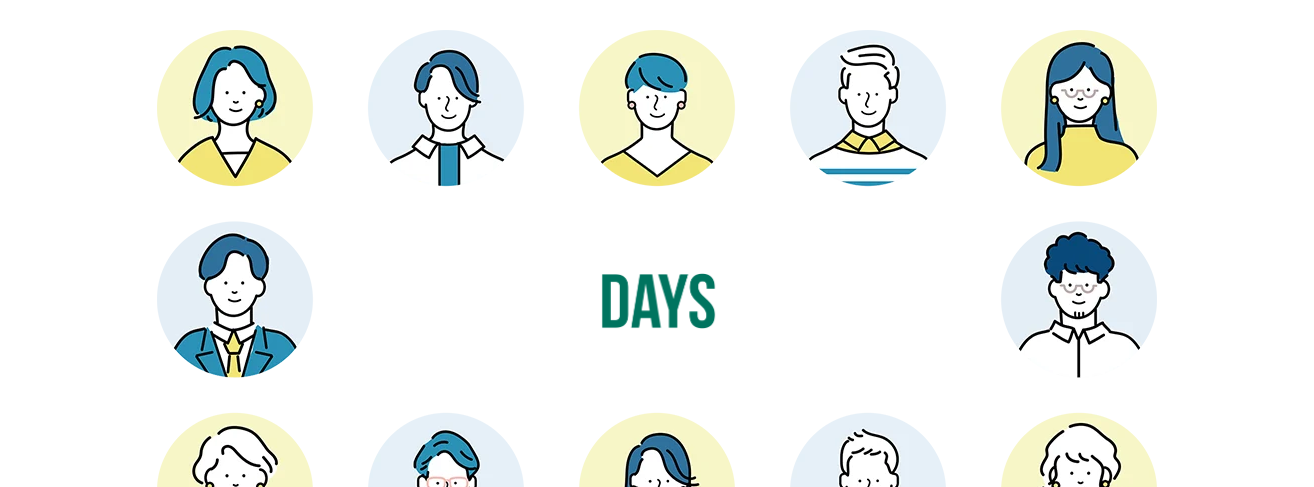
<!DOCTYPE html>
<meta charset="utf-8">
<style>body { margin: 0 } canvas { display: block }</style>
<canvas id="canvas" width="1314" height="487"></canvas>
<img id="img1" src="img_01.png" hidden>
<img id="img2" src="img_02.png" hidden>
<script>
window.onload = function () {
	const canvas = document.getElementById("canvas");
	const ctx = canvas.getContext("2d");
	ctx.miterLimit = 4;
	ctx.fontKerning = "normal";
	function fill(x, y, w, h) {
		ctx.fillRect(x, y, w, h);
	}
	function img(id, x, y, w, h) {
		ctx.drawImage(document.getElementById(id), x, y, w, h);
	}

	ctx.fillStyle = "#FFFFFF";
	fill(0, 0, 1314, 487);
	img("img1", 157, 30, 1000, 457);
	img("img2", 601, 273, 115, 56);
};
</script>
